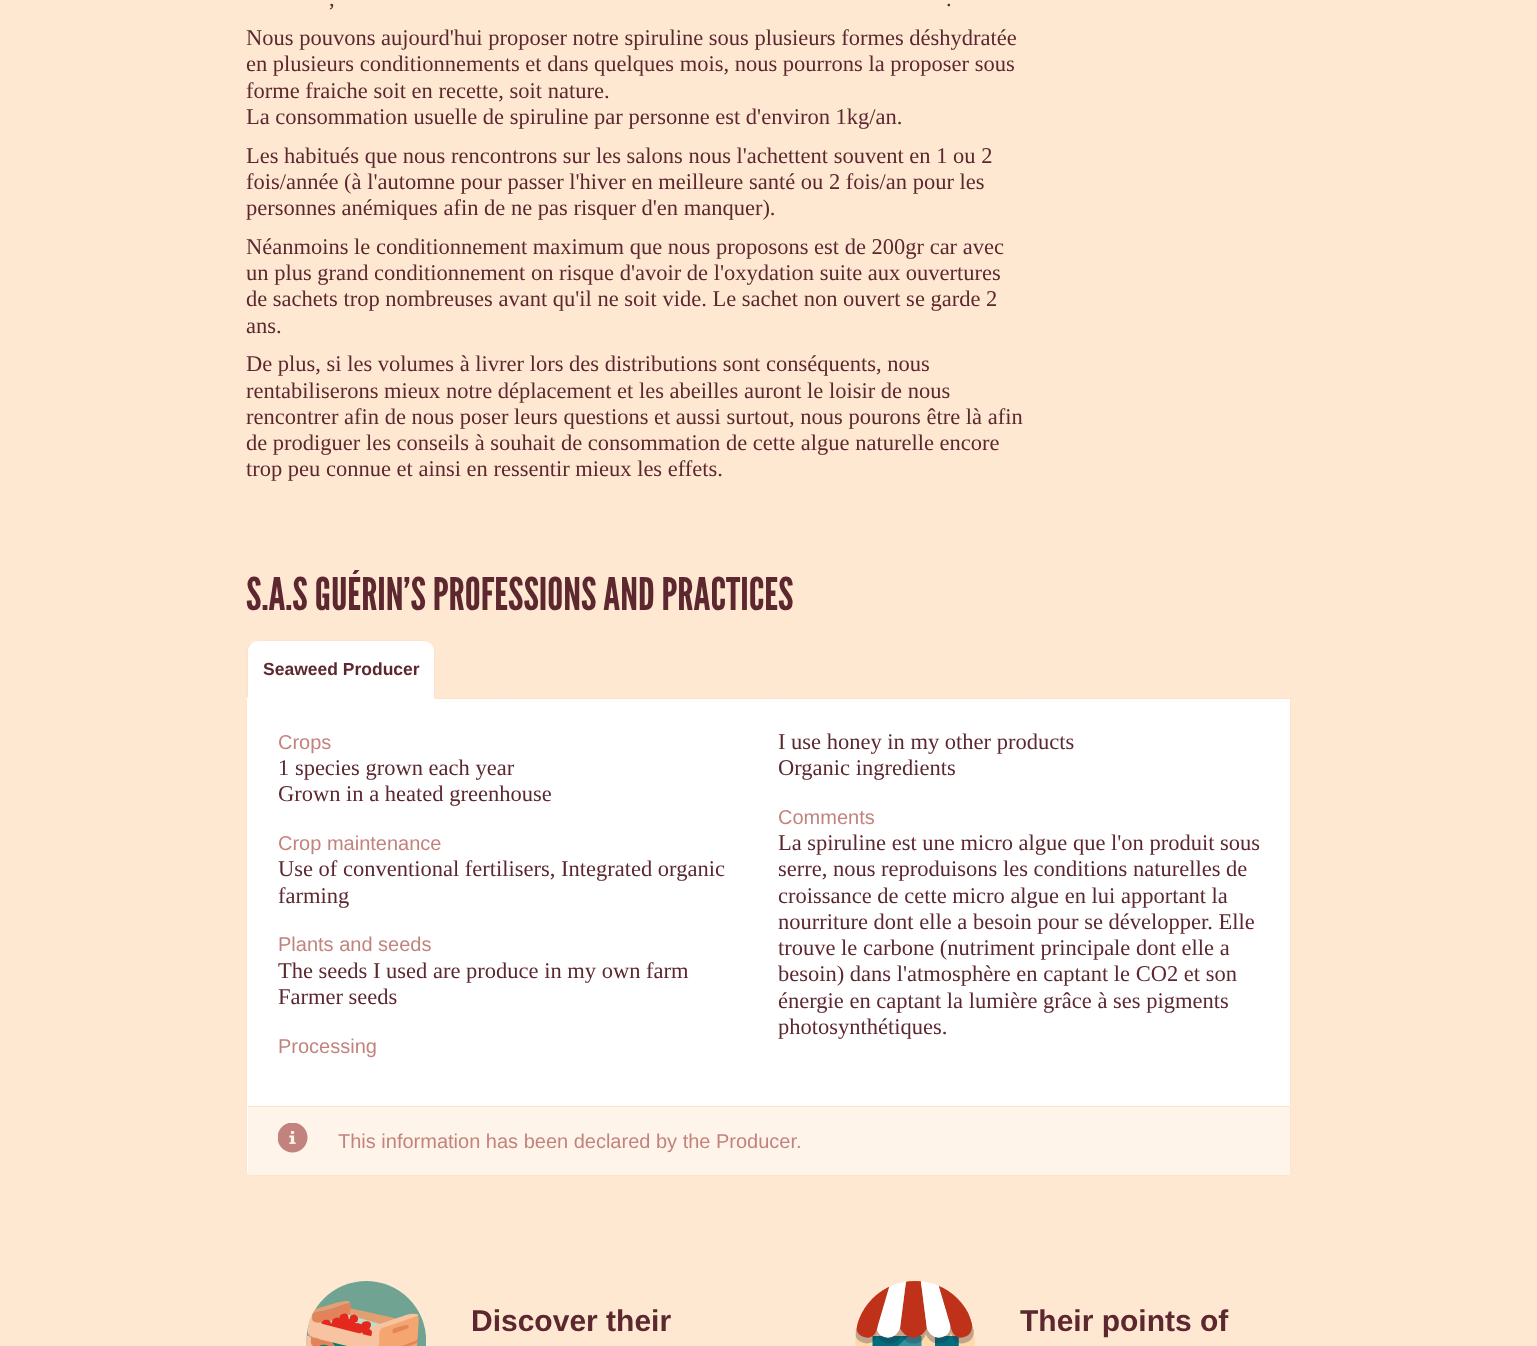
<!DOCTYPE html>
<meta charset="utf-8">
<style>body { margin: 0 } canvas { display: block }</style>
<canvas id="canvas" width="1537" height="1346"></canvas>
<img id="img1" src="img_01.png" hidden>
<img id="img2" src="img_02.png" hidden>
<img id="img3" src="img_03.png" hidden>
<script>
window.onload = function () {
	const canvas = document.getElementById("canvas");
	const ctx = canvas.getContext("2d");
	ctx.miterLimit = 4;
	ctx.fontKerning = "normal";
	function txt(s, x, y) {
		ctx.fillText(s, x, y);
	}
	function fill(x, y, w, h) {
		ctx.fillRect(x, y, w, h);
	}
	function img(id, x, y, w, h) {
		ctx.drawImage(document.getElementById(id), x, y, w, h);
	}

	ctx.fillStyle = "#FFE8D2";
	fill(0, 0, 1537, 1346);
	ctx.fillStyle = "#FFFFFF";
	ctx.beginPath();
	ctx.roundRect(246.5, 698.5, 1044, 477, [0, 0, 3.5, 3.5]);
	ctx.fill();
	ctx.strokeStyle = "#FFE3C8";
	ctx.stroke();
	ctx.beginPath();
	ctx.roundRect(246, 640, 189, 59, [11, 11, 0, 0]);
	ctx.fill();
	ctx.fillStyle = "#FFE3C8";
	ctx.beginPath();
	ctx.moveTo(258, 640);
	ctx.bezierCurveTo(255, 640, 252, 641, 249, 643);
	ctx.lineTo(251, 644);
	ctx.bezierCurveTo(252, 642, 255, 641, 258, 641);
	ctx.lineTo(424, 641);
	ctx.bezierCurveTo(426, 641, 429, 642, 431, 644);
	ctx.lineTo(432, 643);
	ctx.bezierCurveTo(430, 641, 427, 640, 424, 640);
	ctx.closePath();
	ctx.fill();
	ctx.beginPath();
	ctx.moveTo(435, 699);
	ctx.lineTo(435, 651);
	ctx.bezierCurveTo(435, 648, 434, 645, 432, 643);
	ctx.lineTo(431, 644);
	ctx.bezierCurveTo(433, 646, 434, 648, 434, 651);
	ctx.lineTo(434, 698);
	ctx.closePath();
	ctx.fill();
	ctx.beginPath();
	ctx.moveTo(246, 699);
	ctx.lineTo(246, 649);
	ctx.bezierCurveTo(247, 647, 248, 645, 249, 643);
	ctx.lineTo(251, 644);
	ctx.bezierCurveTo(249, 646, 248, 649, 248, 651);
	ctx.lineTo(248, 697);
	ctx.closePath();
	ctx.fill();
	ctx.fillStyle = "#FFF4E9";
	fill(248, 1107, 1042, 68);
	ctx.fillStyle = "#FFE3C8";
	fill(248, 1106, 1042, 1);
	img("img1", 278, 1123, 30, 30);
	img("img2", 306, 1281, 120, 65);
	img("img3", 855, 1281, 120, 65);
	ctx.font = "22.5px Liberation Serif";
	ctx.fillStyle = "#5C272F";
	txt(",", 329, 6);
	txt(".", 946, 6);
	txt("Nous pouvons aujourd'hui proposer notre spiruline sous plusieurs formes déshydratée", 246, 45);
	txt("en plusieurs conditionnements et dans quelques mois, nous pourrons la proposer sous", 246, 71);
	txt("forme fraiche soit en recette, soit nature.", 246, 98);
	txt("La consommation usuelle de spiruline par personne est d'environ 1kg/an.", 246, 124);
	txt("Les habitués que nous rencontrons sur les salons nous l'achettent souvent en 1 ou 2", 246, 163);
	txt("fois/année (à l'automne pour passer l'hiver en meilleure santé ou 2 fois/an pour les", 246, 189);
	txt("personnes anémiques afin de ne pas risquer d'en manquer).", 246, 215);
	txt("Néanmoins le conditionnement maximum que nous proposons est de 200gr car avec", 246, 254);
	txt("un plus grand conditionnement on risque d'avoir de l'oxydation suite aux ouvertures", 246, 280);
	txt("de sachets trop nombreuses avant qu'il ne soit vide. Le sachet non ouvert se garde 2", 246, 306);
	txt("ans.", 246, 333);
	txt("De plus, si les volumes à livrer lors des distributions sont conséquents, nous", 246, 371);
	txt("rentabiliserons mieux notre déplacement et les abeilles auront le loisir de nous", 246, 398);
	txt("rencontrer afin de nous poser leurs questions et aussi surtout, nous pourons être là afin", 246, 424);
	txt("de prodiguer les conseils à souhait de consommation de cette algue naturelle encore", 246, 450);
	txt("trop peu connue et ainsi en ressentir mieux les effets.", 246, 476);
	ctx.font = "45px League Gothic";
	txt("S.A.S GUÉRIN'S PROFESSIONS AND PRACTICES", 246, 610);
	ctx.font = "bold 17.5px Liberation Sans";
	txt("Seaweed Producer", 263, 675);
	ctx.font = "22.5px Liberation Serif";
	txt("I use honey in my other products", 778, 749);
	txt("Organic ingredients", 778, 775);
	ctx.font = "20px Liberation Sans";
	ctx.fillStyle = "#C2837E";
	txt("Processing", 278, 1053);
	txt("Crops", 278, 749);
	ctx.font = "22.5px Liberation Serif";
	ctx.fillStyle = "#5C272F";
	txt("1 species grown each year", 278, 775);
	txt("Grown in a heated greenhouse", 278, 801);
	ctx.font = "20px Liberation Sans";
	ctx.fillStyle = "#C2837E";
	txt("Crop maintenance", 278, 850);
	ctx.font = "22.5px Liberation Serif";
	ctx.fillStyle = "#5C272F";
	txt("Use of conventional fertilisers, Integrated organic", 278, 876);
	txt("farming", 278, 903);
	ctx.font = "20px Liberation Sans";
	ctx.fillStyle = "#C2837E";
	txt("Comments", 778, 824);
	ctx.font = "22.5px Liberation Serif";
	ctx.fillStyle = "#5C272F";
	txt("La spiruline est une micro algue que l'on produit sous", 778, 850);
	txt("serre, nous reproduisons les conditions naturelles de", 778, 876);
	txt("croissance de cette micro algue en lui apportant la", 778, 903);
	txt("nourriture dont elle a besoin pour se développer. Elle", 778, 929);
	txt("trouve le carbone (nutriment principale dont elle a", 778, 955);
	txt("besoin) dans l'atmosphère en captant le CO2 et son", 778, 981);
	txt("énergie en captant la lumière grâce à ses pigments", 778, 1008);
	txt("photosynthétiques.", 778, 1034);
	ctx.font = "20px Liberation Sans";
	ctx.fillStyle = "#C2837E";
	txt("Plants and seeds", 278, 951);
	ctx.font = "22.5px Liberation Serif";
	ctx.fillStyle = "#5C272F";
	txt("The seeds I used are produce in my own farm", 278, 978);
	txt("Farmer seeds", 278, 1004);
	ctx.font = "20px Liberation Sans";
	ctx.fillStyle = "#C2837E";
	txt("This information has been declared by the Producer.", 338, 1148);
	ctx.font = "bold 30px Liberation Sans";
	ctx.fillStyle = "#5C272F";
	txt("Discover their", 471, 1331);
	txt("Their points of", 1020, 1331);
};
</script>
